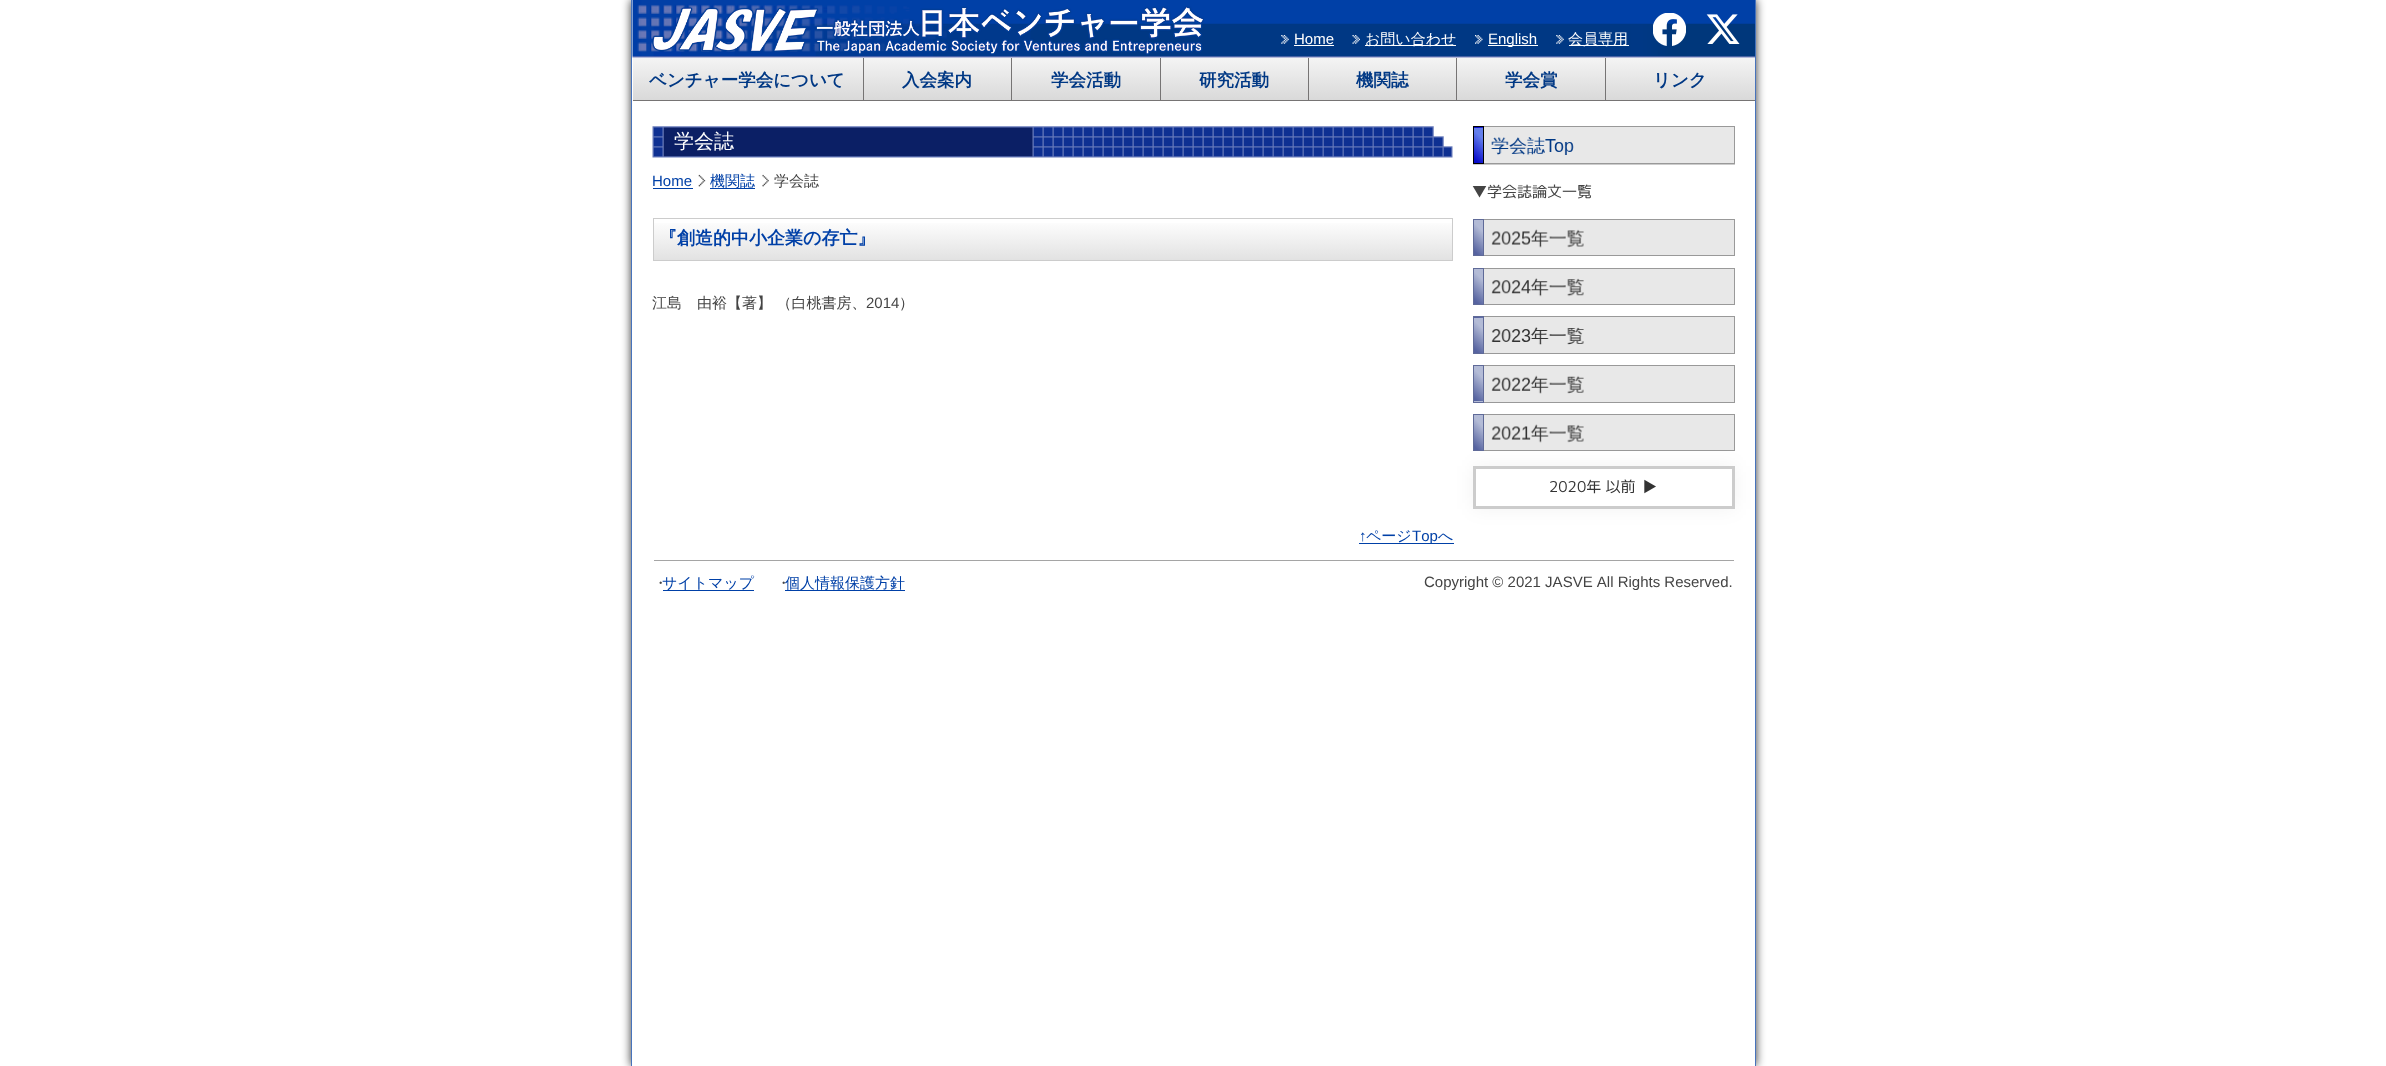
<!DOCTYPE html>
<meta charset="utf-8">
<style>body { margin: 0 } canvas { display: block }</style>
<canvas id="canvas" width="2386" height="1066"></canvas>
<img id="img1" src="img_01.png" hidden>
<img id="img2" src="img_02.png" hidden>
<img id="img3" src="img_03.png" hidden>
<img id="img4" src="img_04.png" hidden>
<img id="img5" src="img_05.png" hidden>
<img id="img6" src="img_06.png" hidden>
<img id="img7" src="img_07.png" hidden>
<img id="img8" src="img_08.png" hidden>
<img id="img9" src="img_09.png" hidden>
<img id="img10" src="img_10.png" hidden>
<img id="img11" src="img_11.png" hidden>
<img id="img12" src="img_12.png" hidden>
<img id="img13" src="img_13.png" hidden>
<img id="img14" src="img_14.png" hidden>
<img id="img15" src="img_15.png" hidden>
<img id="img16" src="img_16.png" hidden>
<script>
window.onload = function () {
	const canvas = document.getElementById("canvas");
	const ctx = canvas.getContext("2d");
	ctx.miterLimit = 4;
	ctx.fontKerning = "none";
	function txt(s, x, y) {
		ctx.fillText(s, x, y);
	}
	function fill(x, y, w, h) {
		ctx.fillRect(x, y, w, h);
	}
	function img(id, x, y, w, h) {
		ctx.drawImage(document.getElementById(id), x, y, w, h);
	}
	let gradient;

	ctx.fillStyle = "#FFFFFF";
	fill(0, 0, 2386, 1066);
	ctx.save();
	ctx.beginPath();
	ctx.moveTo(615, 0);
	ctx.lineTo(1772, 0);
	ctx.lineTo(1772, 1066);
	ctx.lineTo(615, 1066);
	ctx.closePath();
	ctx.moveTo(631, 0);
	ctx.lineTo(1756, 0);
	ctx.lineTo(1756, 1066);
	ctx.lineTo(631, 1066);
	ctx.closePath();
	ctx.clip("evenodd");
	ctx.fillStyle = "rgba(0, 0, 0, 0.8)";
	ctx.filter = "blur(5px)";
	ctx.beginPath();
	ctx.rect(631, 0, 1125, 1066);
	ctx.fill();
	ctx.filter = "none";
	ctx.restore();
	ctx.fillStyle = "#4773BC";
	fill(1755, 0, 1, 1066);
	fill(631, 0, 1, 1066);
	img("img1", 632, 0, 1123, 58);
	img("img2", 652, 6, 552, 49);
	img("img3", 1281, 35, 8, 9);
	ctx.fillStyle = "#FFFFFF";
	fill(1294, 45, 40, 1);
	img("img4", 1352, 35, 8, 9);
	fill(1365, 45, 91, 1);
	img("img5", 1475, 35, 8, 9);
	fill(1488, 45, 50, 1);
	img("img3", 1556, 35, 8, 9);
	fill(1569, 45, 60, 1);
	img("img6", 1653, 13, 33, 33);
	img("img7", 1706, 14, 34, 30);
	gradient = ctx.createLinearGradient(1194, 100, 1194, 58);
	gradient.addColorStop(0, "#D9D9D9");
	gradient.addColorStop(1, "#F4F4F4");
	ctx.fillStyle = gradient;
	fill(633, 58, 1122, 42);
	ctx.fillStyle = "#767474";
	fill(633, 100, 1122, 1);
	fill(863, 58, 1, 42);
	fill(1011, 58, 1, 42);
	fill(1160, 58, 1, 42);
	fill(1308, 58, 1, 42);
	fill(1456, 58, 1, 42);
	fill(1605, 58, 1, 42);
	img("img8", 652, 126, 801, 32);
	ctx.fillStyle = "#0040A7";
	fill(653, 188, 40, 1);
	img("img9", 698, 174, 8, 13);
	fill(710, 188, 45, 1);
	img("img10", 762, 174, 7, 13);
	gradient = ctx.createLinearGradient(1053, 260, 1053, 219);
	gradient.addColorStop(0, "#E2E2E2");
	gradient.addColorStop(1, "#FFFFFF");
	ctx.fillStyle = gradient;
	fill(654, 223, 798, 37);
	ctx.strokeStyle = "#CCCCCC";
	ctx.strokeRect(653.5, 218.5, 799, 42);
	ctx.fillStyle = "#E8E8E8";
	fill(1484, 127, 250, 36);
	ctx.strokeStyle = "#999999";
	ctx.strokeRect(1473.5, 126.5, 261, 37);
	gradient = ctx.createLinearGradient(1467, 121, 1489, 99);
	gradient.addColorStop(0.1, "#090DCB");
	gradient.addColorStop(0.75, "#647FEC");
	ctx.fillStyle = gradient;
	fill(1474, 127, 9, 1);
	gradient = ctx.createLinearGradient(1467, 156, 1489, 134);
	gradient.addColorStop(0.1, "#090DCB");
	gradient.addColorStop(0.75, "#647FEC");
	ctx.fillStyle = gradient;
	fill(1474, 128, 9, 35);
	ctx.strokeStyle = "#000000";
	ctx.strokeRect(1473.5, 126.5, 10, 37);
	img("img11", 1491, 137, 83, 18);
	ctx.fillStyle = "#CCCCCC";
	fill(1473, 164, 262, 1);
	ctx.fillStyle = "#E8E8E8";
	fill(1484, 220, 250, 35);
	ctx.strokeStyle = "#999999";
	ctx.strokeRect(1473.5, 219.5, 261, 36);
	gradient = ctx.createLinearGradient(1467, 248, 1489, 227);
	gradient.addColorStop(0.1, "#5663A0");
	gradient.addColorStop(0.75, "#B3BBD6");
	ctx.fillStyle = gradient;
	fill(1474, 220, 9, 35);
	ctx.strokeStyle = "#5F6A98";
	ctx.strokeRect(1473.5, 219.5, 10, 36);
	img("img12", 1491, 229, 93, 19);
	ctx.fillStyle = "#E8E8E8";
	fill(1484, 269, 250, 35);
	ctx.strokeStyle = "#999999";
	ctx.strokeRect(1473.5, 268.5, 261, 36);
	gradient = ctx.createLinearGradient(1467, 297, 1489, 275);
	gradient.addColorStop(0.1, "#5663A0");
	gradient.addColorStop(0.75, "#B3BBD6");
	ctx.fillStyle = gradient;
	fill(1474, 269, 9, 35);
	ctx.strokeStyle = "#5F6A98";
	ctx.strokeRect(1473.5, 268.5, 10, 36);
	img("img13", 1491, 278, 93, 19);
	ctx.fillStyle = "#E8E8E8";
	fill(1484, 317, 250, 36);
	ctx.strokeStyle = "#999999";
	ctx.strokeRect(1473.5, 316.5, 261, 37);
	gradient = ctx.createLinearGradient(1467, 311, 1489, 289);
	gradient.addColorStop(0.1, "#5663A0");
	gradient.addColorStop(0.75, "#B3BBD6");
	ctx.fillStyle = gradient;
	fill(1474, 317, 9, 1);
	gradient = ctx.createLinearGradient(1467, 346, 1489, 324);
	gradient.addColorStop(0.1, "#5663A0");
	gradient.addColorStop(0.75, "#B3BBD6");
	ctx.fillStyle = gradient;
	fill(1474, 318, 9, 35);
	ctx.strokeStyle = "#5F6A98";
	ctx.strokeRect(1473.5, 316.5, 10, 37);
	img("img14", 1491, 327, 93, 18);
	ctx.fillStyle = "#E8E8E8";
	fill(1484, 366, 250, 36);
	ctx.strokeStyle = "#999999";
	ctx.strokeRect(1473.5, 365.5, 261, 37);
	gradient = ctx.createLinearGradient(1467, 395, 1489, 373);
	gradient.addColorStop(0.1, "#5663A0");
	gradient.addColorStop(0.75, "#B3BBD6");
	ctx.fillStyle = gradient;
	fill(1474, 366, 9, 35);
	gradient = ctx.createLinearGradient(1467, 430, 1489, 408);
	gradient.addColorStop(0.1, "#5663A0");
	gradient.addColorStop(0.75, "#B3BBD6");
	ctx.fillStyle = gradient;
	fill(1474, 401, 9, 1);
	ctx.strokeStyle = "#5F6A98";
	ctx.strokeRect(1473.5, 365.5, 10, 37);
	img("img15", 1491, 375, 93, 19);
	ctx.fillStyle = "#E8E8E8";
	fill(1484, 415, 250, 35);
	ctx.strokeStyle = "#999999";
	ctx.strokeRect(1473.5, 414.5, 261, 36);
	ctx.fillStyle = "rgba(0, 0, 0, 0.05)";
	ctx.filter = "blur(9.5px)";
	ctx.beginPath();
	ctx.rect(1473, 466, 262, 43);
	ctx.fill();
	ctx.filter = "none";
	gradient = ctx.createLinearGradient(1467, 443, 1489, 422);
	gradient.addColorStop(0.1, "#5663A0");
	gradient.addColorStop(0.75, "#B3BBD6");
	ctx.fillStyle = gradient;
	fill(1474, 415, 9, 35);
	ctx.strokeStyle = "#5F6A98";
	ctx.strokeRect(1473.5, 414.5, 10, 36);
	img("img16", 1491, 424, 93, 19);
	ctx.fillStyle = "#FFFFFF";
	ctx.beginPath();
	ctx.rect(1474.5, 467.5, 259, 40);
	ctx.fill();
	ctx.strokeStyle = "#CCCCCC";
	ctx.lineWidth = 3;
	ctx.stroke();
	ctx.fillStyle = "#0040A7";
	fill(1359, 543, 95, 1);
	ctx.fillStyle = "#A5A5A5";
	fill(654, 560, 1080, 1);
	ctx.fillStyle = "#0040A7";
	fill(663, 590, 91, 1);
	fill(785, 590, 120, 1);
	ctx.font = "15px Liberation Sans";
	ctx.fillStyle = "#FFFFFF";
	txt("Home", 1294, 44);
	ctx.font = "500 15px WenQuanYi Zen Hei";
	txt("お問い合わせ", 1365, 44);
	ctx.font = "15px Liberation Sans";
	txt("English", 1488, 44);
	ctx.font = "500 15px WenQuanYi Zen Hei";
	txt("会員専用", 1568, 44);
	ctx.font = "bold 17.5px WenQuanYi Zen Hei";
	ctx.fillStyle = "#003884";
	txt("ベンチャー学会について", 649, 86);
	txt("入会案内", 902, 86);
	txt("学会活動", 1051, 86);
	txt("研究活動", 1199, 86);
	txt("機関誌", 1356, 86);
	txt("学会賞", 1505, 86);
	txt("リンク", 1653, 86);
	ctx.font = "500 20px WenQuanYi Zen Hei";
	ctx.fillStyle = "#FFFFFF";
	txt("学会誌", 674, 148);
	ctx.font = "15px Liberation Sans";
	ctx.fillStyle = "#0040A7";
	txt("Home", 652, 186);
	ctx.font = "500 15px WenQuanYi Zen Hei";
	txt("機関誌", 710, 186);
	ctx.fillStyle = "#444444";
	txt("学会誌", 774, 186);
	ctx.font = "bold 18px WenQuanYi Zen Hei";
	ctx.fillStyle = "#0040A7";
	txt("『創造的中小企業の存亡』", 659, 244);
	ctx.font = "500 15px WenQuanYi Zen Hei";
	ctx.fillStyle = "#444444";
	txt("江島　由裕【著】 （白桃書房、", 652, 308);
	ctx.font = "15px Liberation Sans";
	txt("2014", 866, 308);
	ctx.font = "500 15px WenQuanYi Zen Hei";
	txt("）", 899, 308);
	ctx.font = "15px 'M PLUS 1p'";
	txt("▼学会誌論文一覧", 1472, 197);
	ctx.fillStyle = "#333333";
	txt("2020年 以前", 1549, 492);
	txt("▶︎", 1642, 492);
	ctx.font = "15px Liberation Sans";
	ctx.fillStyle = "#0040A7";
	txt("↑", 1359, 541);
	ctx.font = "500 15px WenQuanYi Zen Hei";
	txt("ページ", 1366, 541);
	ctx.font = "15px Liberation Sans";
	txt("Top", 1412, 541);
	ctx.font = "500 15px WenQuanYi Zen Hei";
	txt("へ", 1438, 541);
	ctx.fillStyle = "#444444";
	txt("・", 653, 588);
	ctx.fillStyle = "#0040A7";
	txt("サイトマップ", 662, 588);
	ctx.fillStyle = "#444444";
	txt("・", 776, 588);
	ctx.fillStyle = "#0040A7";
	txt("個人情報保護方針", 785, 588);
	ctx.font = "15px Liberation Sans";
	ctx.fillStyle = "#444444";
	txt("Copyright © 2021 JASVE All Rights Reserved.", 1424, 587);
};
</script>
